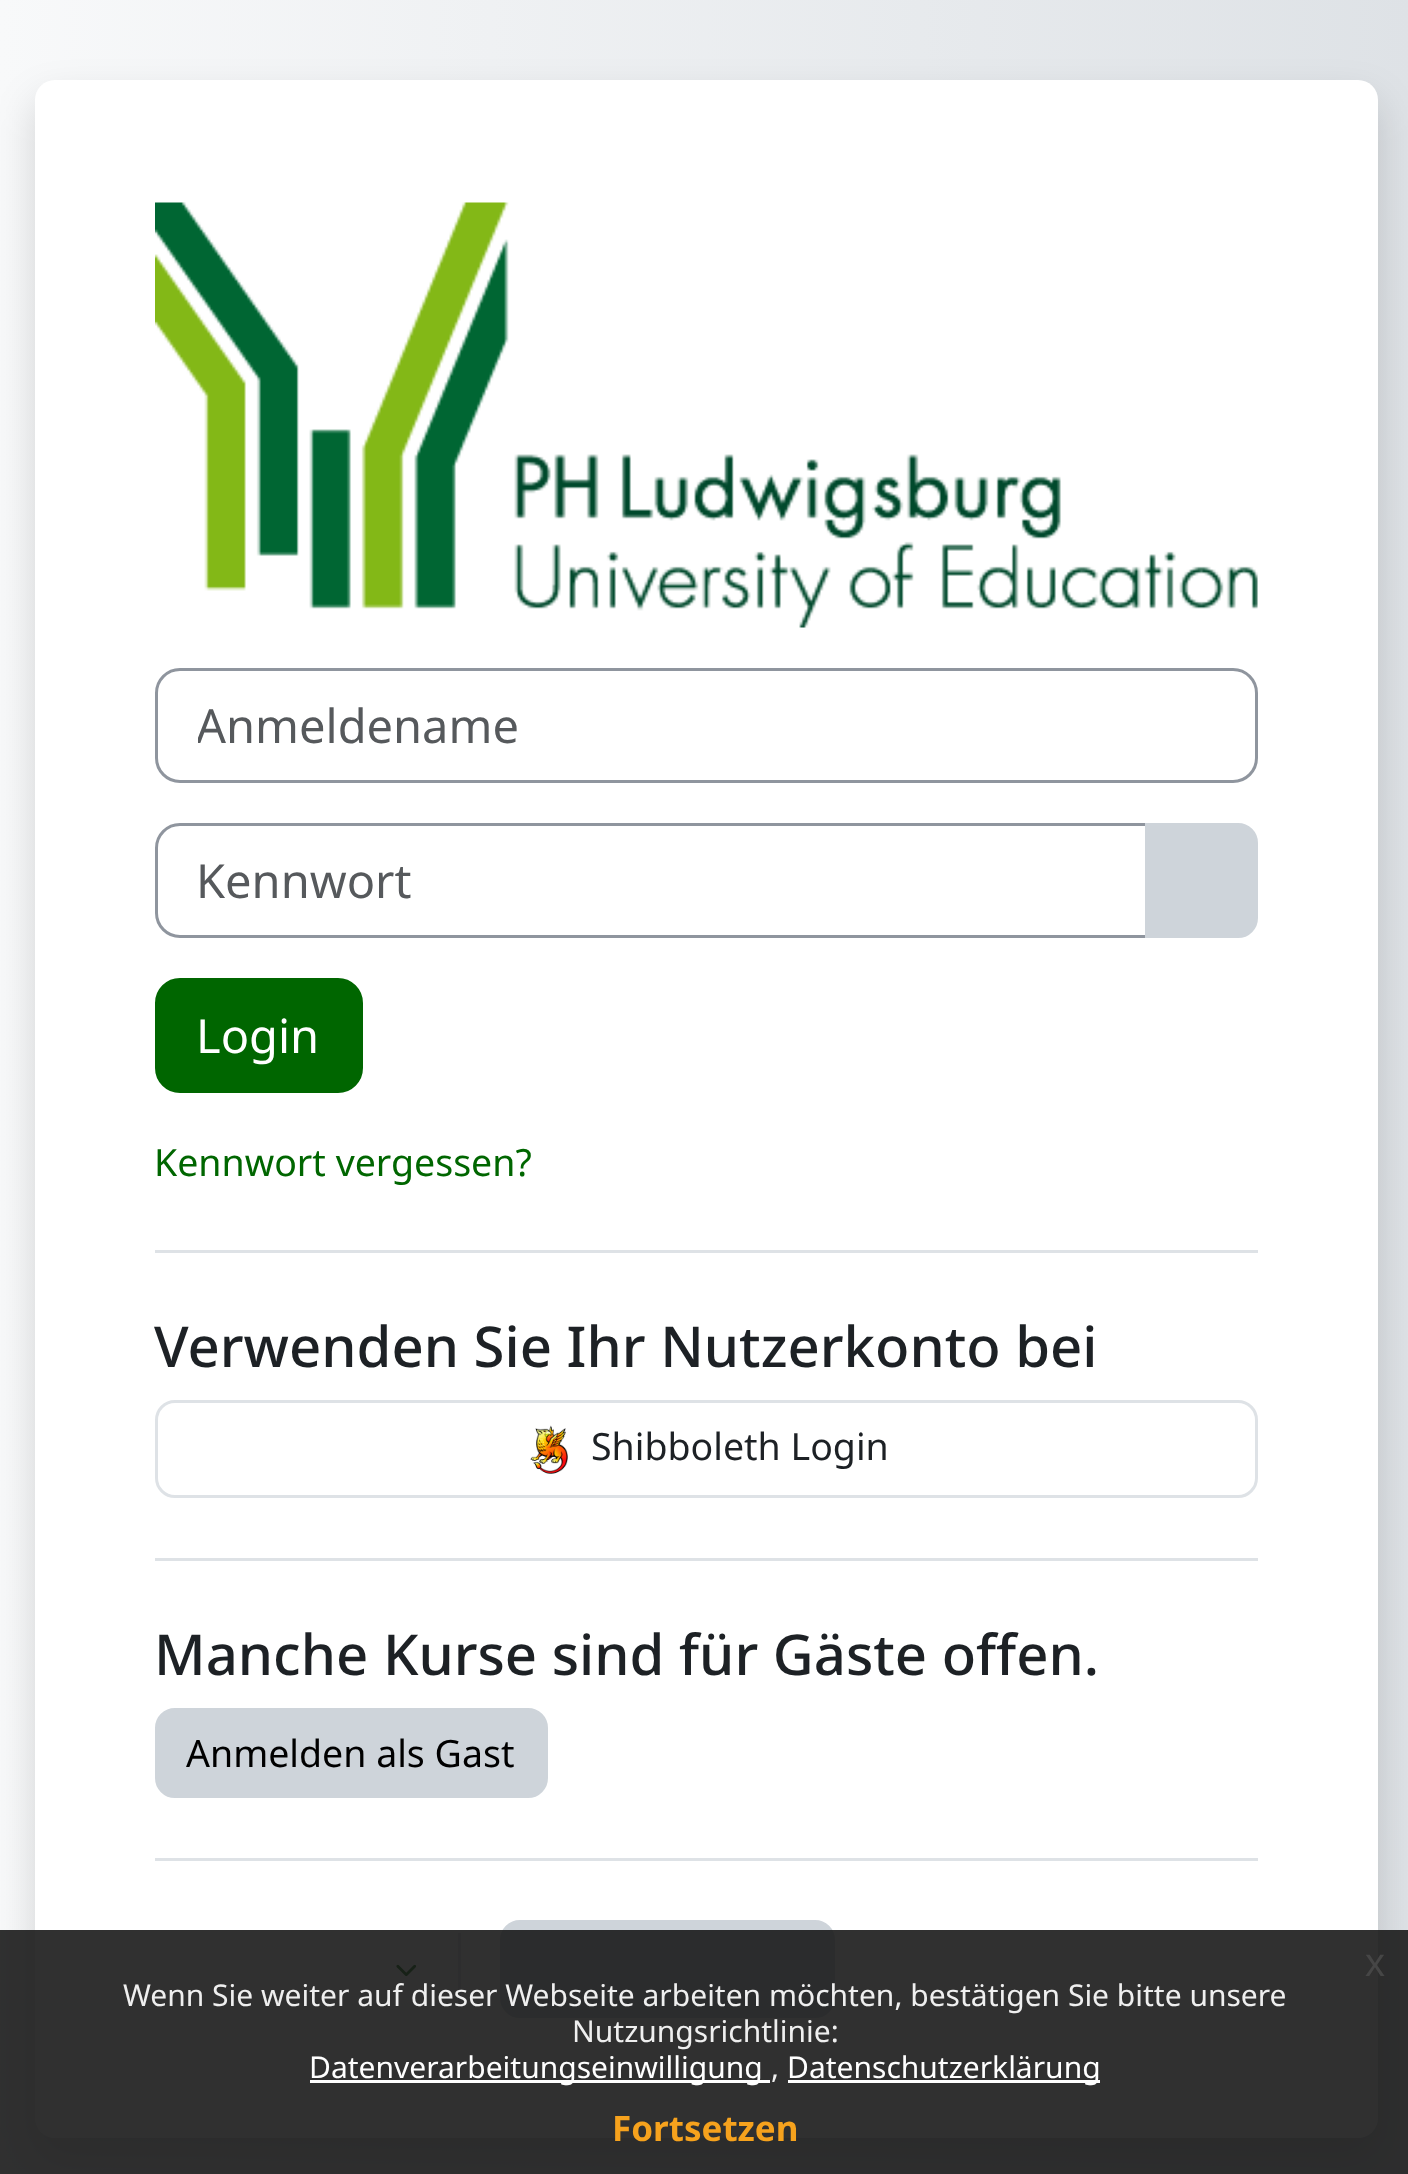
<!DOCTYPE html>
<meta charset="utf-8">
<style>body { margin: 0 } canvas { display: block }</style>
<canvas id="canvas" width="1408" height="2174"></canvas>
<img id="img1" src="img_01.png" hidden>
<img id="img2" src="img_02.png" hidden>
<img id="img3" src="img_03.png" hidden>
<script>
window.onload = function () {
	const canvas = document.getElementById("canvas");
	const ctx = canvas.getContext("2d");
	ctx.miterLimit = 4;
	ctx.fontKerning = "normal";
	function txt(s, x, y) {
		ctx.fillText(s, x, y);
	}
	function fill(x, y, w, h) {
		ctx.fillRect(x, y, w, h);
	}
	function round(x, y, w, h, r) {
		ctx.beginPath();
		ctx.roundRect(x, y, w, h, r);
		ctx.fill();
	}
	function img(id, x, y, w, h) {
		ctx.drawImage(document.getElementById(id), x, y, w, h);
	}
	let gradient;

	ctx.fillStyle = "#FFFFFF";
	fill(0, 0, 1408, 2174);
	gradient = ctx.createLinearGradient(0, 1109, 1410, 1109);
	gradient.addColorStop(0, "#F8F9FA");
	gradient.addColorStop(1, "#DEE2E6");
	ctx.fillStyle = gradient;
	fill(0, 0, 1408, 2174);
	ctx.fillStyle = "rgba(0, 0, 0, 0.15)";
	ctx.filter = "blur(20px)";
	ctx.beginPath();
	ctx.roundRect(35, 100, 1343, 2058, 20);
	ctx.fill();
	ctx.filter = "none";
	ctx.fillStyle = "#FFFFFF";
	round(35, 80, 1343, 2058, 20);
	img("img1", 155, 202, 1103, 426);
	ctx.beginPath();
	ctx.roundRect(156.5, 669.5, 1100, 112, 23.5);
	ctx.strokeStyle = "#8F959E";
	ctx.lineWidth = 3;
	ctx.stroke();
	ctx.beginPath();
	ctx.roundRect(156.5, 824.5, 990, 112, [23.5, 0, 0, 23.5]);
	ctx.stroke();
	ctx.fillStyle = "#CED4DA";
	ctx.beginPath();
	ctx.roundRect(1146.5, 824.5, 110, 112, [0, 18.5, 18.5, 0]);
	ctx.fill();
	ctx.strokeStyle = "#CED4DA";
	ctx.stroke();
	ctx.fillStyle = "#006600";
	ctx.beginPath();
	ctx.roundRect(156.5, 979.5, 205, 112, 23.5);
	ctx.fill();
	ctx.strokeStyle = "#006600";
	ctx.stroke();
	ctx.fillStyle = "#DEE2E6";
	fill(155, 1250, 1103, 3);
	ctx.beginPath();
	ctx.roundRect(156.5, 1401.5, 1100, 95, 18.5);
	ctx.strokeStyle = "#DEE2E6";
	ctx.stroke();
	img("img2", 530, 1425, 38, 49);
	fill(155, 1558, 1103, 3);
	ctx.fillStyle = "#CED4DA";
	ctx.beginPath();
	ctx.roundRect(156.5, 1709.5, 390, 87, 18.5);
	ctx.fill();
	ctx.strokeStyle = "#CED4DA";
	ctx.stroke();
	ctx.fillStyle = "#DEE2E6";
	fill(155, 1858, 1103, 3);
	img("img3", 396, 1964, 21, 13);
	fill(458, 1933, 3, 75);
	ctx.fillStyle = "#CED4DA";
	ctx.beginPath();
	ctx.roundRect(501.5, 1921.5, 332, 95, 18.5);
	ctx.fill();
	ctx.stroke();
	ctx.fillStyle = "rgba(25, 25, 25, 0.9)";
	fill(0, 1930, 1408, 244);
	ctx.fillStyle = "#FFFFFF";
	fill(310, 2080, 460, 3);
	fill(788, 2080, 312, 3);
	ctx.save();
	ctx.beginPath();
	ctx.rect(198, 693, 1017, 62);
	ctx.clip();
	ctx.font = "47px Noto Sans";
	ctx.fillStyle = "#56595C";
	txt("Anmeldename", 196, 743);
	ctx.restore();
	ctx.font = "47px Noto Sans";
	ctx.fillStyle = "#56595C";
	txt("Kennwort", 196, 898);
	ctx.fillStyle = "#FFFFFF";
	txt("Login", 196, 1053);
	ctx.font = "37.5px Noto Sans";
	ctx.fillStyle = "#006600";
	txt("Kennwort vergessen?", 154, 1176);
	ctx.font = "500 56.25px Noto Sans";
	ctx.fillStyle = "#1D2125";
	txt("Verwenden Sie Ihr Nutzerkonto bei", 154, 1367);
	ctx.font = "37.5px Noto Sans";
	txt("Shibboleth Login", 591, 1460);
	ctx.font = "500 56.25px Noto Sans";
	txt("Manche Kurse sind für Gäste offen.", 154, 1675);
	ctx.font = "37.5px Noto Sans";
	ctx.fillStyle = "#000000";
	txt("Anmelden als Gast", 186, 1767);
	ctx.font = "40px Liberation Sans";
	ctx.fillStyle = "#464646";
	txt("x", 1365, 1976);
	ctx.font = "30px Noto Sans";
	ctx.fillStyle = "#EFEFEF";
	txt("Wenn Sie weiter auf dieser Webseite arbeiten möchten, bestätigen Sie bitte unsere", 123, 2006);
	txt("Nutzungsrichtlinie:", 572, 2042);
	ctx.fillStyle = "#FFFFFF";
	txt("Datenverarbeitungseinwilligung", 309, 2078);
	ctx.fillStyle = "#EFEFEF";
	txt(",", 771, 2078);
	ctx.fillStyle = "#FFFFFF";
	txt("Datenschutzerklärung", 787, 2078);
	ctx.font = "bold 35px Noto Sans";
	ctx.fillStyle = "#F6A21D";
	txt("Fortsetzen", 612, 2141);
};
</script>
